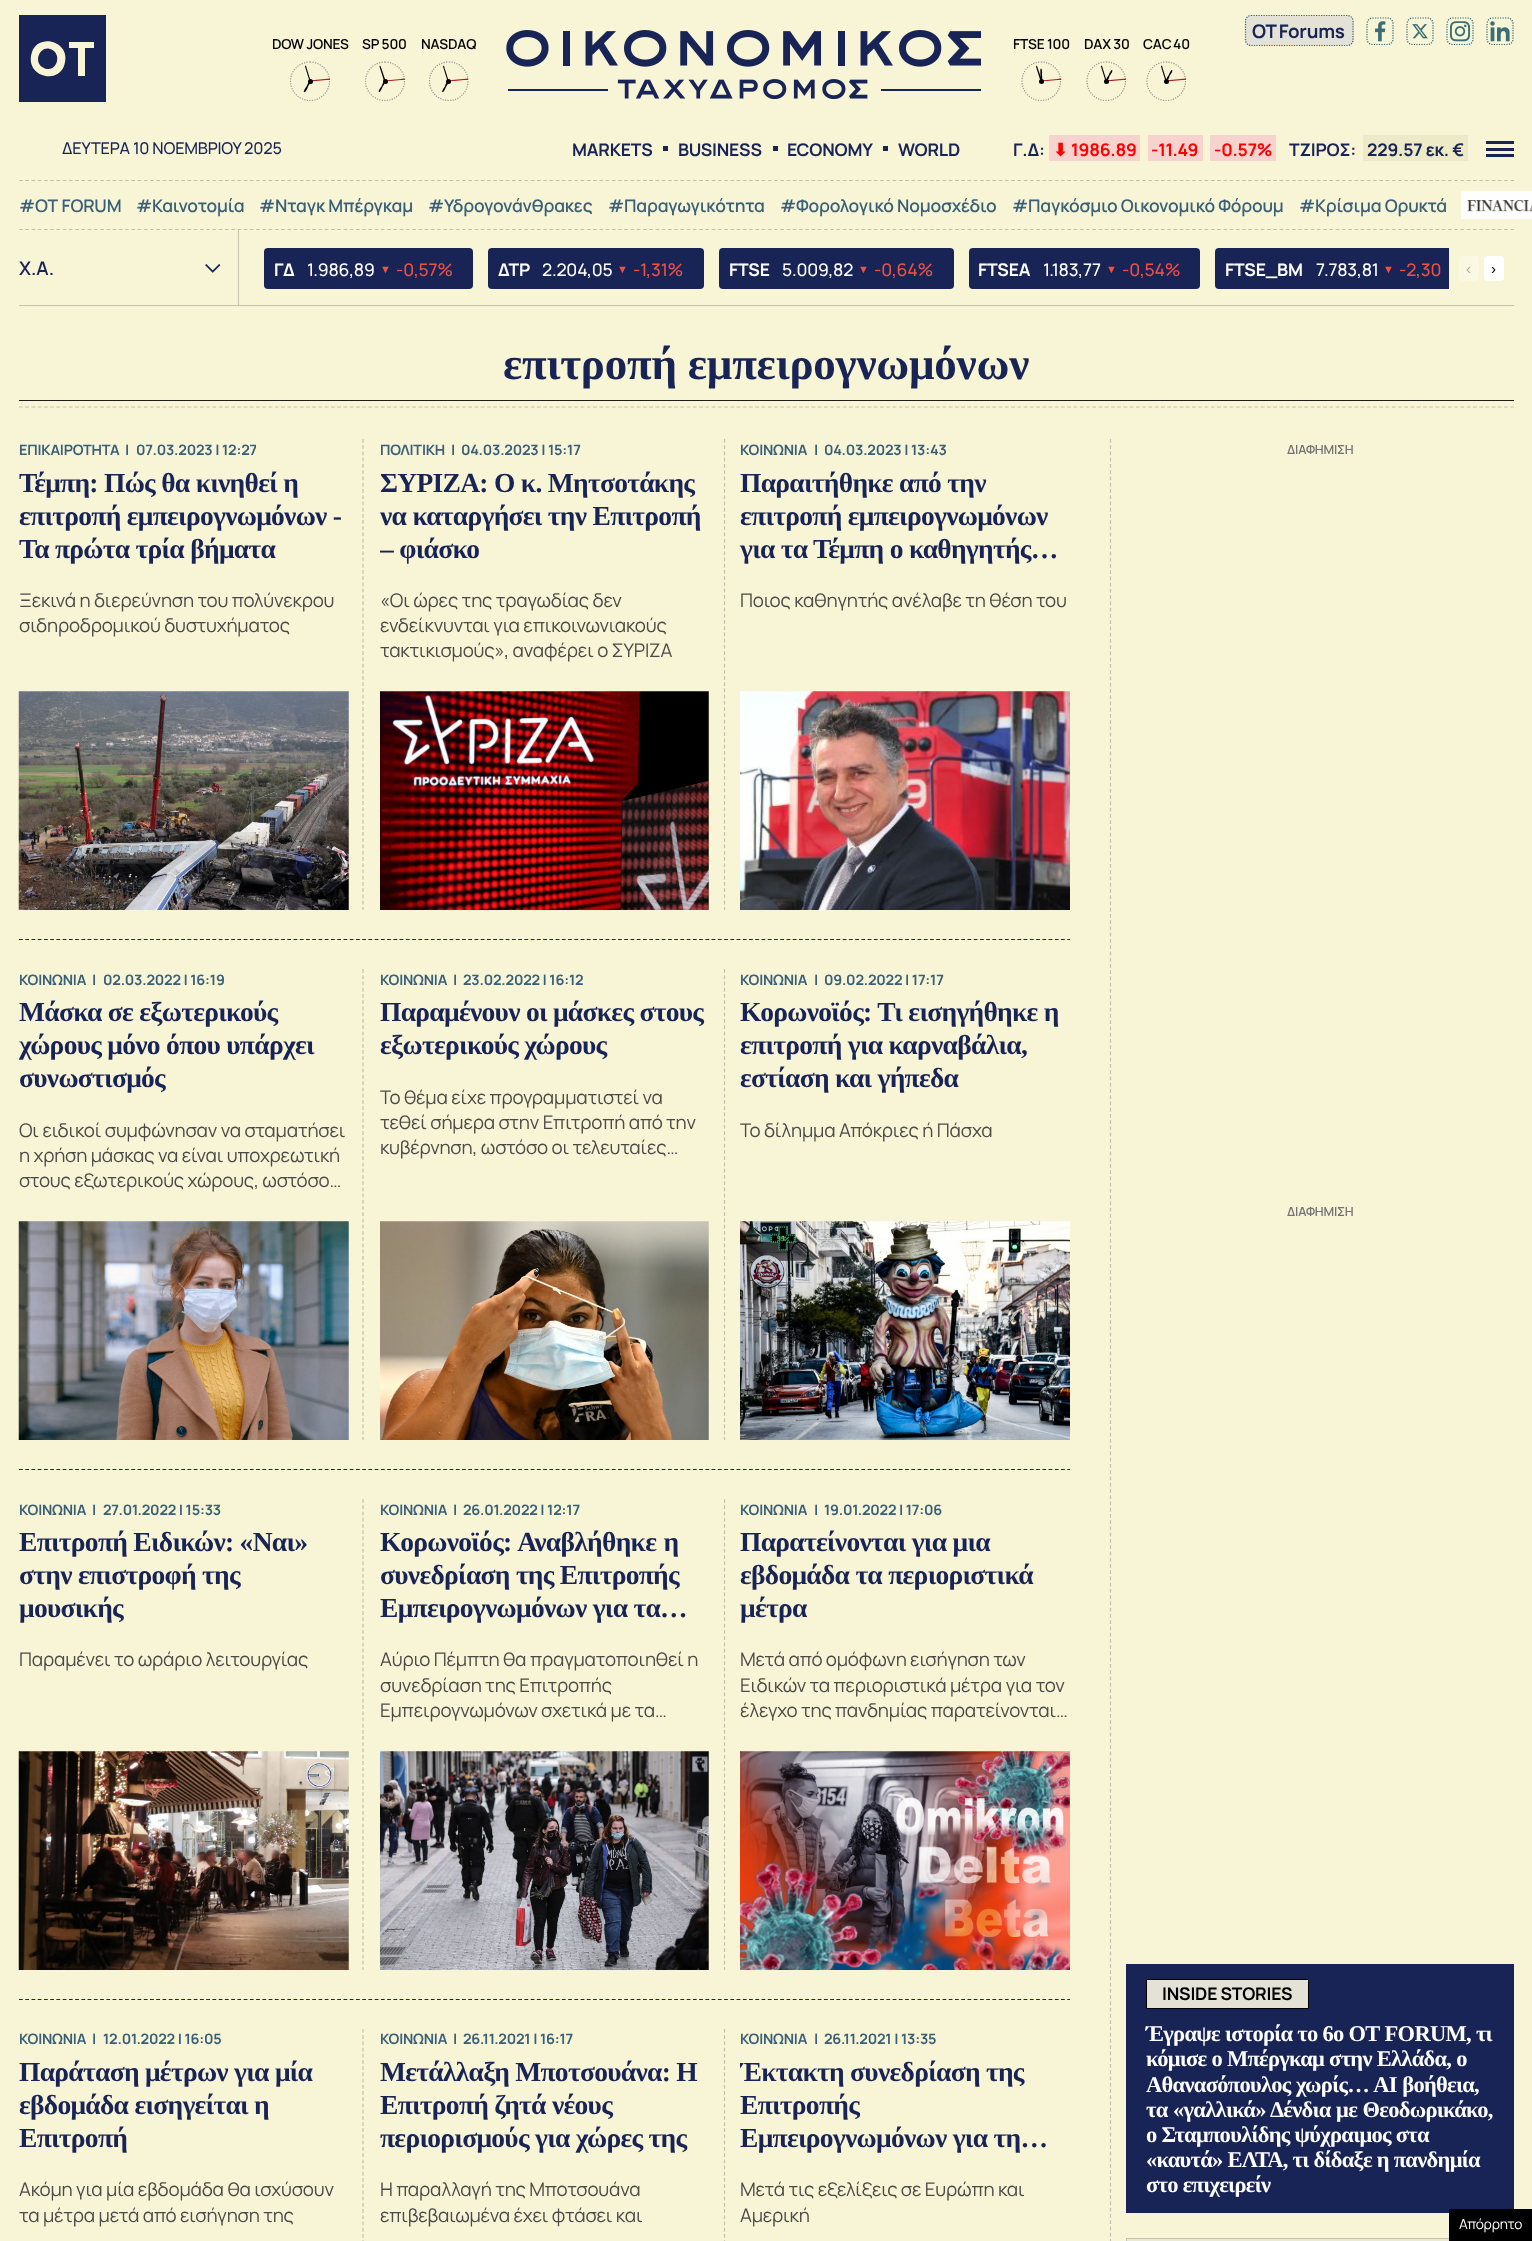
<!DOCTYPE html>
<meta charset="utf-8">
<style>body { margin: 0 } canvas { display: block }</style>
<canvas id="canvas" width="1532" height="2241"></canvas>
<img id="img1" src="img_01.png" hidden>
<img id="img2" src="img_02.png" hidden>
<img id="img3" src="img_03.png" hidden>
<img id="img4" src="img_04.png" hidden>
<img id="img5" src="img_05.png" hidden>
<img id="img6" src="img_06.png" hidden>
<img id="img7" src="img_07.png" hidden>
<img id="img8" src="img_08.png" hidden>
<img id="img9" src="img_09.png" hidden>
<img id="img10" src="img_10.png" hidden>
<img id="img11" src="img_11.png" hidden>
<img id="img12" src="img_12.png" hidden>
<img id="img13" src="img_13.png" hidden>
<img id="img14" src="img_14.png" hidden>
<img id="img15" src="img_15.png" hidden>
<img id="img16" src="img_16.png" hidden>
<script>
window.onload = function () {
	const canvas = document.getElementById("canvas");
	const ctx = canvas.getContext("2d");
	ctx.miterLimit = 4;
	ctx.fontKerning = "normal";
	function txt(s, x, y) {
		ctx.fillText(s, x, y);
	}
	function fill(x, y, w, h) {
		ctx.fillRect(x, y, w, h);
	}
	function round(x, y, w, h, r) {
		ctx.beginPath();
		ctx.roundRect(x, y, w, h, r);
		ctx.fill();
	}
	function img(id, x, y, w, h) {
		ctx.drawImage(document.getElementById(id), x, y, w, h);
	}

	ctx.fillStyle = "#F8F5D7";
	fill(0, 0, 1532, 2241);
	ctx.fillStyle = "#192456";
	ctx.beginPath();
	ctx.moveTo(94, 48);
	ctx.lineTo(85, 48);
	ctx.lineTo(85, 76);
	ctx.lineTo(78, 76);
	ctx.lineTo(78, 48);
	ctx.lineTo(69, 48);
	ctx.lineTo(69, 42);
	ctx.lineTo(94, 42);
	ctx.closePath();
	ctx.moveTo(64, 66);
	ctx.bezierCurveTo(57, 85, 24, 76, 32, 52);
	ctx.bezierCurveTo(39, 32, 73, 42, 64, 66);
	ctx.closePath();
	ctx.moveTo(19, 102);
	ctx.lineTo(106, 102);
	ctx.lineTo(106, 15);
	ctx.lineTo(19, 15);
	ctx.closePath();
	ctx.fill("evenodd");
	ctx.beginPath();
	ctx.moveTo(52.5, 50);
	ctx.bezierCurveTo(41.5, 43, 32, 61, 43, 67.5);
	ctx.bezierCurveTo(44.5, 68.5, 46.5, 69, 48.5, 69);
	ctx.bezierCurveTo(58, 68.5, 60.5, 54.5, 52.5, 50);
	ctx.fill("evenodd");
	ctx.fillStyle = "#E4E2D6";
	round(1245, 15, 109, 31, 6);
	ctx.beginPath();
	ctx.moveTo(1251, 15.5);
	ctx.lineTo(1347.5, 15.5);
	ctx.bezierCurveTo(1350.5, 15.5, 1353, 18, 1353, 21);
	ctx.lineTo(1353, 40);
	ctx.bezierCurveTo(1353, 43, 1350.5, 45.5, 1347.5, 45.5);
	ctx.lineTo(1251, 45.5);
	ctx.bezierCurveTo(1248, 45.5, 1245.5, 43, 1245.5, 40);
	ctx.lineTo(1245.5, 21);
	ctx.bezierCurveTo(1245.5, 18, 1248, 15.5, 1251, 15.5);
	ctx.closePath();
	ctx.strokeStyle = "#3A6D78";
	ctx.lineWidth = 1.2;
	ctx.setLineDash([1.25, 1.25]);
	ctx.stroke();
	ctx.beginPath();
	ctx.moveTo(1372.5, 18);
	ctx.lineTo(1387.5, 18);
	ctx.bezierCurveTo(1390.5, 18, 1393, 20.5, 1393, 24);
	ctx.lineTo(1393, 39);
	ctx.bezierCurveTo(1393, 42, 1390.5, 44.5, 1387.5, 44.5);
	ctx.lineTo(1372.5, 44.5);
	ctx.bezierCurveTo(1369.5, 44.5, 1367, 42, 1367, 39);
	ctx.lineTo(1367, 24);
	ctx.bezierCurveTo(1367, 20.5, 1369.5, 18, 1372.5, 18);
	ctx.closePath();
	ctx.stroke();
	img("img1", 1375, 21, 11, 21);
	ctx.beginPath();
	ctx.moveTo(1412.5, 18);
	ctx.lineTo(1427.5, 18);
	ctx.bezierCurveTo(1430.5, 18, 1433, 20.5, 1433, 24);
	ctx.lineTo(1433, 39);
	ctx.bezierCurveTo(1433, 42, 1430.5, 44.5, 1427.5, 44.5);
	ctx.lineTo(1412.5, 44.5);
	ctx.bezierCurveTo(1409.5, 44.5, 1407, 42, 1407, 39);
	ctx.lineTo(1407, 24);
	ctx.bezierCurveTo(1407, 20.5, 1409.5, 18, 1412.5, 18);
	ctx.closePath();
	ctx.stroke();
	img("img2", 1412, 24, 16, 15);
	ctx.beginPath();
	ctx.moveTo(1452.5, 18);
	ctx.lineTo(1467.5, 18);
	ctx.bezierCurveTo(1470.5, 18, 1473, 20.5, 1473, 24);
	ctx.lineTo(1473, 39);
	ctx.bezierCurveTo(1473, 42, 1470.5, 44.5, 1467.5, 44.5);
	ctx.lineTo(1452.5, 44.5);
	ctx.bezierCurveTo(1449.5, 44.5, 1447, 42, 1447, 39);
	ctx.lineTo(1447, 24);
	ctx.bezierCurveTo(1447, 20.5, 1449.5, 18, 1452.5, 18);
	ctx.closePath();
	ctx.stroke();
	img("img3", 1450, 21, 20, 21);
	ctx.beginPath();
	ctx.moveTo(1492.5, 18);
	ctx.lineTo(1507.5, 18);
	ctx.bezierCurveTo(1510.5, 18, 1513, 20.5, 1513, 24);
	ctx.lineTo(1513, 39);
	ctx.bezierCurveTo(1513, 42, 1510.5, 44.5, 1507.5, 44.5);
	ctx.lineTo(1492.5, 44.5);
	ctx.bezierCurveTo(1489.5, 44.5, 1487, 42, 1487, 39);
	ctx.lineTo(1487, 24);
	ctx.bezierCurveTo(1487, 20.5, 1489.5, 18, 1492.5, 18);
	ctx.closePath();
	ctx.stroke();
	img("img4", 1490, 21, 20, 21);
	ctx.beginPath();
	ctx.moveTo(310, 62);
	ctx.bezierCurveTo(320.5, 62, 329.5, 70.5, 329.5, 81);
	ctx.bezierCurveTo(329.5, 92, 320.5, 100.5, 310, 100.5);
	ctx.bezierCurveTo(299.5, 100.5, 290.5, 92, 290.5, 81);
	ctx.bezierCurveTo(290.5, 70.5, 299.5, 62, 310, 62);
	ctx.closePath();
	ctx.strokeStyle = "#9C9A92";
	ctx.stroke();
	ctx.fillStyle = "#000000";
	ctx.beginPath();
	ctx.moveTo(304, 92);
	ctx.bezierCurveTo(303, 91.5, 306, 87, 306.5, 86.5);
	ctx.bezierCurveTo(307, 85.5, 309, 80.5, 310, 81);
	ctx.bezierCurveTo(311.5, 82, 308, 86, 308, 87);
	ctx.bezierCurveTo(307.5, 88, 305.5, 93, 304, 92);
	ctx.closePath();
	ctx.moveTo(305, 65.5);
	ctx.lineTo(306, 66);
	ctx.lineTo(310.5, 80.5);
	ctx.lineTo(310, 81);
	ctx.lineTo(309.5, 81);
	ctx.lineTo(305, 66.5);
	ctx.closePath();
	ctx.fill();
	ctx.fillStyle = "#AF1F1B";
	ctx.beginPath();
	ctx.moveTo(330, 79);
	ctx.bezierCurveTo(330, 80.5, 327.5, 80, 326.5, 80);
	ctx.lineTo(310.5, 81.5);
	ctx.lineTo(310, 81);
	ctx.bezierCurveTo(310, 80, 312.5, 80.5, 314, 80);
	ctx.lineTo(330, 78.5);
	ctx.closePath();
	ctx.fill();
	ctx.fillStyle = "#000000";
	ctx.beginPath();
	ctx.arc(310.5, 81.5, 2.5, 0, Math.PI * 2);
	ctx.fill();
	ctx.beginPath();
	ctx.moveTo(385, 62);
	ctx.bezierCurveTo(395.5, 62, 404.5, 70.5, 404.5, 81);
	ctx.bezierCurveTo(404.5, 92, 395.5, 100.5, 385, 100.5);
	ctx.bezierCurveTo(374.5, 100.5, 365.5, 92, 365.5, 81);
	ctx.bezierCurveTo(365.5, 70.5, 374.5, 62, 385, 62);
	ctx.closePath();
	ctx.stroke();
	ctx.beginPath();
	ctx.moveTo(379, 92);
	ctx.bezierCurveTo(377.5, 91.5, 381, 87, 381.5, 86.5);
	ctx.bezierCurveTo(382, 85.5, 383.5, 80.5, 385, 81);
	ctx.bezierCurveTo(386, 82, 383, 86, 382.5, 87);
	ctx.bezierCurveTo(382, 88, 380, 93, 379, 92);
	ctx.closePath();
	ctx.moveTo(380, 65.5);
	ctx.lineTo(380.5, 66);
	ctx.lineTo(385.5, 80.5);
	ctx.lineTo(385, 81);
	ctx.lineTo(384, 81);
	ctx.lineTo(379.5, 66.5);
	ctx.closePath();
	ctx.fill();
	ctx.fillStyle = "#AF1F1B";
	ctx.beginPath();
	ctx.moveTo(405, 79);
	ctx.bezierCurveTo(405, 80.5, 402.5, 80, 401, 80);
	ctx.lineTo(385, 81.5);
	ctx.lineTo(385, 81);
	ctx.lineTo(385, 80.5);
	ctx.lineTo(401, 79);
	ctx.bezierCurveTo(402.5, 78.5, 404.5, 78, 405, 79);
	ctx.closePath();
	ctx.fill();
	ctx.fillStyle = "#000000";
	ctx.beginPath();
	ctx.arc(385.5, 81.5, 2.5, 0, Math.PI * 2);
	ctx.fill();
	ctx.beginPath();
	ctx.moveTo(449, 62);
	ctx.bezierCurveTo(459.5, 62, 468, 70.5, 468, 81);
	ctx.bezierCurveTo(468, 92, 459.5, 100.5, 449, 100.5);
	ctx.bezierCurveTo(438, 100.5, 429.5, 92, 429.5, 81);
	ctx.bezierCurveTo(429.5, 70.5, 438, 62, 449, 62);
	ctx.closePath();
	ctx.stroke();
	ctx.beginPath();
	ctx.moveTo(442.5, 92);
	ctx.bezierCurveTo(441, 91.5, 444.5, 87, 445, 86.5);
	ctx.bezierCurveTo(445, 85.5, 447, 80.5, 448.5, 81);
	ctx.bezierCurveTo(449.5, 82, 446.5, 86, 446, 87);
	ctx.bezierCurveTo(445.5, 88, 443.5, 93, 442.5, 92);
	ctx.closePath();
	ctx.moveTo(443.5, 65.5);
	ctx.lineTo(444, 66);
	ctx.lineTo(448.5, 80.5);
	ctx.lineTo(448.5, 81);
	ctx.lineTo(447.5, 81);
	ctx.lineTo(443, 66.5);
	ctx.closePath();
	ctx.fill();
	ctx.fillStyle = "#AF1F1B";
	ctx.beginPath();
	ctx.moveTo(468, 79);
	ctx.bezierCurveTo(468.5, 80.5, 466, 80, 464.5, 80);
	ctx.lineTo(448.5, 81.5);
	ctx.lineTo(448.5, 81);
	ctx.bezierCurveTo(448, 80, 450.5, 80.5, 452, 80);
	ctx.lineTo(468, 78.5);
	ctx.closePath();
	ctx.fill();
	ctx.fillStyle = "#000000";
	ctx.beginPath();
	ctx.arc(448.5, 81.5, 2.5, 0, Math.PI * 2);
	ctx.fill();
	img("img5", 506, 30, 475, 69);
	ctx.beginPath();
	ctx.moveTo(1041, 62);
	ctx.bezierCurveTo(1052, 62, 1060.5, 70.5, 1060.5, 81);
	ctx.bezierCurveTo(1060.5, 92, 1052, 100.5, 1041, 100.5);
	ctx.bezierCurveTo(1030.5, 100.5, 1022, 92, 1022, 81);
	ctx.bezierCurveTo(1022, 70.5, 1030.5, 62, 1041, 62);
	ctx.closePath();
	ctx.stroke();
	ctx.beginPath();
	ctx.moveTo(1041, 68.5);
	ctx.bezierCurveTo(1042.5, 68.5, 1042, 74, 1042, 75);
	ctx.bezierCurveTo(1042, 76, 1043, 81, 1041.5, 81);
	ctx.bezierCurveTo(1040, 81, 1040.5, 76, 1040.5, 75);
	ctx.bezierCurveTo(1040.5, 74, 1040, 68.5, 1041, 68.5);
	ctx.closePath();
	ctx.fill();
	ctx.beginPath();
	ctx.moveTo(1036.5, 65.5);
	ctx.lineTo(1037, 66);
	ctx.lineTo(1042, 80.5);
	ctx.lineTo(1041.5, 81);
	ctx.lineTo(1040.5, 81);
	ctx.lineTo(1036, 66.5);
	ctx.closePath();
	ctx.fill();
	ctx.fillStyle = "#AF1F1B";
	ctx.beginPath();
	ctx.moveTo(1061.5, 79);
	ctx.bezierCurveTo(1061.5, 80.5, 1059, 80, 1057.5, 80);
	ctx.lineTo(1042, 81.5);
	ctx.lineTo(1041.5, 81);
	ctx.lineTo(1041.5, 80.5);
	ctx.lineTo(1057.5, 79);
	ctx.bezierCurveTo(1059, 78.5, 1061.5, 78, 1061.5, 79);
	ctx.closePath();
	ctx.fill();
	ctx.fillStyle = "#000000";
	ctx.beginPath();
	ctx.arc(1041.5, 81.5, 2.5, 0, Math.PI * 2);
	ctx.fill();
	ctx.beginPath();
	ctx.moveTo(1106, 62);
	ctx.bezierCurveTo(1117, 62, 1125.5, 70.5, 1125.5, 81);
	ctx.bezierCurveTo(1125.5, 92, 1117, 100.5, 1106, 100.5);
	ctx.bezierCurveTo(1095.5, 100.5, 1087, 92, 1087, 81);
	ctx.bezierCurveTo(1087, 70.5, 1095.5, 62, 1106, 62);
	ctx.closePath();
	ctx.stroke();
	ctx.beginPath();
	ctx.moveTo(1112, 70);
	ctx.bezierCurveTo(1113.5, 71, 1110, 75, 1109.5, 76);
	ctx.bezierCurveTo(1109.5, 77, 1107.5, 82, 1106, 81);
	ctx.bezierCurveTo(1105, 80.5, 1108, 76, 1108.5, 75.5);
	ctx.bezierCurveTo(1109, 74.5, 1111, 69.5, 1112, 70);
	ctx.closePath();
	ctx.fill();
	ctx.beginPath();
	ctx.moveTo(1101, 65.5);
	ctx.lineTo(1102, 66);
	ctx.lineTo(1106.5, 80.5);
	ctx.lineTo(1106, 81);
	ctx.lineTo(1105.5, 81);
	ctx.lineTo(1101, 66.5);
	ctx.closePath();
	ctx.fill();
	ctx.fillStyle = "#AF1F1B";
	ctx.beginPath();
	ctx.moveTo(1126, 79);
	ctx.bezierCurveTo(1126, 80.5, 1123.5, 80, 1122.5, 80);
	ctx.lineTo(1106.5, 81.5);
	ctx.lineTo(1106, 81);
	ctx.bezierCurveTo(1106, 80, 1108.5, 80.5, 1110, 80);
	ctx.lineTo(1126, 78.5);
	ctx.closePath();
	ctx.fill();
	ctx.fillStyle = "#000000";
	ctx.beginPath();
	ctx.arc(1106.5, 81.5, 2.5, 0, Math.PI * 2);
	ctx.fill();
	ctx.beginPath();
	ctx.moveTo(1166, 62);
	ctx.bezierCurveTo(1177, 62, 1185.5, 70.5, 1185.5, 81);
	ctx.bezierCurveTo(1185.5, 92, 1177, 100.5, 1166, 100.5);
	ctx.bezierCurveTo(1155.5, 100.5, 1147, 92, 1147, 81);
	ctx.bezierCurveTo(1147, 70.5, 1155.5, 62, 1166, 62);
	ctx.closePath();
	ctx.stroke();
	ctx.beginPath();
	ctx.moveTo(1172, 70);
	ctx.bezierCurveTo(1173.5, 71, 1170, 75, 1169.5, 76);
	ctx.bezierCurveTo(1169.5, 77, 1167.5, 82, 1166, 81);
	ctx.bezierCurveTo(1165, 80.5, 1168, 76, 1168.5, 75.5);
	ctx.bezierCurveTo(1169, 74.5, 1171, 69.5, 1172, 70);
	ctx.closePath();
	ctx.fill();
	ctx.beginPath();
	ctx.moveTo(1161, 65.5);
	ctx.lineTo(1162, 66);
	ctx.lineTo(1166.5, 80.5);
	ctx.lineTo(1166, 81);
	ctx.lineTo(1165.5, 81);
	ctx.lineTo(1161, 66.5);
	ctx.closePath();
	ctx.fill();
	ctx.fillStyle = "#AF1F1B";
	ctx.beginPath();
	ctx.moveTo(1186, 79);
	ctx.bezierCurveTo(1186, 80.5, 1183.5, 80, 1182.5, 80);
	ctx.lineTo(1166.5, 81.5);
	ctx.lineTo(1166, 81);
	ctx.bezierCurveTo(1166, 80, 1168.5, 80.5, 1170, 80);
	ctx.lineTo(1186, 78.5);
	ctx.closePath();
	ctx.fill();
	ctx.fillStyle = "#000000";
	ctx.beginPath();
	ctx.arc(1166.5, 81.5, 2.5, 0, Math.PI * 2);
	ctx.fill();
	ctx.fillStyle = "#192456";
	fill(663, 146, 5, 5);
	fill(773, 146, 5, 5);
	fill(883, 146, 5, 5);
	ctx.fillStyle = "#F6D3CE";
	fill(1049, 135, 91, 26);
	fill(1148, 135, 55, 26);
	fill(1210, 135, 66, 26);
	ctx.fillStyle = "#EDEAC7";
	fill(1363, 135, 105, 26);
	ctx.fillStyle = "#192456";
	fill(1486, 141, 28, 3);
	fill(1486, 148, 28, 3);
	fill(1486, 154, 28, 3);
	ctx.beginPath();
	ctx.moveTo(19, 180.5);
	ctx.lineTo(1514, 180.5);
	ctx.strokeStyle = "#C3C1AE";
	ctx.setLineDash([3.75, 2.49]);
	ctx.stroke();
	ctx.save();
	ctx.beginPath();
	ctx.rect(0, 161, 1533, 69);
	ctx.clip();
	ctx.beginPath();
	ctx.moveTo(19, 229.5);
	ctx.lineTo(1514, 229.5);
	ctx.stroke();
	ctx.restore();
	ctx.fillStyle = "#FFFFFF";
	fill(1461, 191, 71, 28);
	img("img6", 1467, 200, 65, 12);
	ctx.fillStyle = "#C3C1AE";
	fill(19, 305, 1495, 1);
	img("img7", 205, 264, 16, 9);
	fill(238, 230, 1, 75);
	ctx.fillStyle = "#192456";
	round(264, 248, 209, 41, 4);
	round(488, 248, 216, 41, 4);
	round(719, 248, 235, 41, 4);
	round(969, 248, 231, 41, 4);
	ctx.beginPath();
	ctx.roundRect(1215, 248, 234, 41, [4, 0, 0, 4]);
	ctx.fill();
	ctx.fillStyle = "#FAF8E3";
	round(1459, 256, 20, 25, 4);
	ctx.fillStyle = "#FFFFFF";
	round(1484, 256, 20, 25, 4);
	ctx.fillStyle = "#1F1D1A";
	fill(19, 400, 1495, 1);
	ctx.beginPath();
	ctx.moveTo(19, 407);
	ctx.lineTo(1514, 407);
	ctx.stroke();
	img("img8", 18, 691, 331, 219);
	ctx.beginPath();
	ctx.moveTo(363, 439);
	ctx.lineTo(363, 910);
	ctx.stroke();
	img("img9", 380, 691, 329, 219);
	ctx.beginPath();
	ctx.moveTo(724.5, 439);
	ctx.lineTo(724.5, 910);
	ctx.stroke();
	img("img10", 740, 691, 330, 219);
	ctx.beginPath();
	ctx.moveTo(19, 939.5);
	ctx.lineTo(1070, 939.5);
	ctx.strokeStyle = "#192456";
	ctx.stroke();
	img("img11", 18, 1221, 331, 219);
	ctx.beginPath();
	ctx.moveTo(363, 969);
	ctx.lineTo(363, 1440);
	ctx.strokeStyle = "#C3C1AE";
	ctx.stroke();
	img("img12", 380, 1221, 329, 219);
	ctx.beginPath();
	ctx.moveTo(724.5, 969);
	ctx.lineTo(724.5, 1440);
	ctx.stroke();
	img("img13", 740, 1221, 330, 219);
	ctx.beginPath();
	ctx.moveTo(19, 1469.5);
	ctx.lineTo(1070, 1469.5);
	ctx.strokeStyle = "#192456";
	ctx.stroke();
	img("img14", 18, 1751, 331, 219);
	ctx.beginPath();
	ctx.moveTo(363, 1499);
	ctx.lineTo(363, 1970);
	ctx.strokeStyle = "#C3C1AE";
	ctx.stroke();
	img("img15", 380, 1751, 329, 219);
	ctx.beginPath();
	ctx.moveTo(724.5, 1499);
	ctx.lineTo(724.5, 1970);
	ctx.stroke();
	img("img16", 740, 1751, 330, 219);
	ctx.beginPath();
	ctx.moveTo(19, 1999.5);
	ctx.lineTo(1070, 1999.5);
	ctx.strokeStyle = "#192456";
	ctx.stroke();
	ctx.beginPath();
	ctx.moveTo(363, 2029);
	ctx.lineTo(363, 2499);
	ctx.strokeStyle = "#C3C1AE";
	ctx.setLineDash([3.75, 2.46]);
	ctx.stroke();
	ctx.beginPath();
	ctx.moveTo(724.5, 2029);
	ctx.lineTo(724.5, 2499);
	ctx.stroke();
	ctx.beginPath();
	ctx.moveTo(1110.5, 439);
	ctx.lineTo(1110.5, 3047.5);
	ctx.setLineDash([3.75, 2.5]);
	ctx.stroke();
	ctx.fillStyle = "#192456";
	fill(1126, 1964, 388, 249);
	ctx.fillStyle = "#E4E2D6";
	ctx.beginPath();
	ctx.rect(1146.5, 1979.5, 162, 29);
	ctx.fill();
	ctx.strokeStyle = "#000000";
	ctx.lineWidth = 1;
	ctx.setLineDash([]);
	ctx.stroke();
	ctx.fillStyle = "#EBE9D2";
	fill(1126, 2239, 323, 2);
	ctx.strokeStyle = "#C3C1AE";
	ctx.strokeRect(1126.5, 2238.5, 387, 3);
	ctx.fillStyle = "#000000";
	fill(1449, 2209, 83, 32);
	ctx.letterSpacing = "-0.2px";
	ctx.wordSpacing = "-1px";
	ctx.font = "bold 18.75px Manrope";
	ctx.fillStyle = "#192456";
	txt("OT Forums", 1252, 38);
	ctx.wordSpacing = "0px";
	ctx.font = "600 13.75px Manrope";
	ctx.fillStyle = "#000000";
	txt("DOW JONES", 272, 49);
	txt("SP 500", 362, 49);
	txt("NASDAQ", 421, 49);
	txt("FTSE 100", 1013, 49);
	txt("DAX 30", 1084, 49);
	ctx.wordSpacing = "-1px";
	txt("CAC 40", 1143, 49);
	ctx.wordSpacing = "0px";
	ctx.font = "500 16.25px Manrope";
	ctx.fillStyle = "#192456";
	txt("ΔΕΥΤΕΡΑ 10 ΝΟΕΜΒΡΙΟΥ 2025", 62, 154);
	ctx.font = "bold 17.5px Manrope";
	txt("MARKETS", 572, 156);
	txt("BUSINESS", 678, 156);
	txt("ECONOMY", 787, 156);
	txt("WORLD", 898, 156);
	txt("Γ.Δ:", 1013, 156);
	ctx.font = "bold 17.5px DejaVu Sans";
	ctx.fillStyle = "#FF0000";
	txt("⬇", 1053, 156);
	ctx.font = "bold 17.5px Manrope";
	txt("1986.89", 1071, 156);
	txt("-11.49", 1151, 156);
	txt("-0.57%", 1214, 156);
	ctx.fillStyle = "#192456";
	txt("ΤΖΙΡΟΣ:", 1289, 156);
	txt("229.57 εκ. €", 1367, 156);
	ctx.wordSpacing = "1px";
	ctx.font = "600 17.5px Manrope";
	ctx.fillStyle = "#3A6078";
	txt("#ΟΤ FORUM", 19, 212);
	ctx.wordSpacing = "0px";
	txt("#Καινοτομία", 136, 212);
	txt("#Νταγκ Μπέργκαμ", 259, 212);
	txt("#Υδρογονάνθρακες", 428, 212);
	txt("#Παραγωγικότητα", 608, 212);
	txt("#Φορολογικό Νομοσχέδιο", 780, 212);
	txt("#Παγκόσμιο Οικονομικό Φόρουμ", 1012, 212);
	txt("#Κρίσιμα Ορυκτά", 1299, 212);
	ctx.letterSpacing = "0px";
	ctx.font = "600 18.75px Manrope";
	ctx.fillStyle = "#192456";
	txt("Χ.Α.", 19, 275);
	ctx.letterSpacing = "-0.2px";
	ctx.font = "bold 17.5px Manrope";
	ctx.fillStyle = "#FFFFFF";
	txt("ΓΔ", 274, 276);
	ctx.font = "500 17.5px Manrope";
	txt("1.986,89", 307, 276);
	ctx.font = "11px Liberation Sans";
	ctx.fillStyle = "#F05143";
	txt("▼", 380, 273);
	ctx.font = "500 17.5px Manrope";
	txt("-0,57%", 396, 276);
	ctx.font = "bold 17.5px Manrope";
	ctx.fillStyle = "#FFFFFF";
	txt("ΔΤΡ", 498, 276);
	ctx.font = "500 17.5px Manrope";
	txt("2.204,05", 542, 276);
	ctx.font = "11px Liberation Sans";
	ctx.fillStyle = "#F05143";
	txt("▼", 617, 273);
	ctx.font = "500 17.5px Manrope";
	txt("-1,31%", 633, 276);
	ctx.font = "bold 17.5px Manrope";
	ctx.fillStyle = "#FFFFFF";
	txt("FTSE", 729, 276);
	ctx.font = "500 17.5px Manrope";
	txt("5.009,82", 782, 276);
	ctx.font = "11px Liberation Sans";
	ctx.fillStyle = "#F05143";
	txt("▼", 858, 273);
	ctx.font = "500 17.5px Manrope";
	txt("-0,64%", 874, 276);
	ctx.font = "bold 17.5px Manrope";
	ctx.fillStyle = "#FFFFFF";
	txt("FTSEA", 978, 276);
	ctx.font = "500 17.5px Manrope";
	txt("1.183,77", 1043, 276);
	ctx.font = "11px Liberation Sans";
	ctx.fillStyle = "#F05143";
	txt("▼", 1106, 273);
	ctx.font = "500 17.5px Manrope";
	txt("-0,54%", 1122, 276);
	ctx.font = "bold 17.5px Manrope";
	ctx.fillStyle = "#FFFFFF";
	txt("FTSE_BM", 1225, 276);
	ctx.font = "500 17.5px Manrope";
	txt("7.783,81", 1316, 276);
	ctx.font = "11px Liberation Sans";
	ctx.fillStyle = "#F05143";
	txt("▼", 1383, 273);
	ctx.font = "500 17.5px Manrope";
	txt("-2,30", 1399, 276);
	ctx.letterSpacing = "0px";
	ctx.font = "15px Liberation Sans";
	ctx.fillStyle = "#AEAC97";
	txt("‹", 1466, 274);
	ctx.fillStyle = "#000000";
	txt("›", 1491, 274);
	ctx.letterSpacing = "-0.2px";
	ctx.font = "bold 45px Tinos";
	ctx.fillStyle = "#192456";
	txt("επιτροπή εμπειρογνωμόνων", 503, 379);
	ctx.font = "bold 14.4px Manrope";
	ctx.fillStyle = "#3A6078";
	txt("ΕΠΙΚΑΙΡΟΤΗΤΑ", 19, 455);
	txt("|", 125, 455);
	ctx.save();
	ctx.beginPath();
	ctx.rect(125, 439, 131, 21);
	ctx.clip();
	txt("07.03.2023 | 12:27", 136, 455);
	ctx.restore();
	ctx.letterSpacing = "-0.7px";
	ctx.font = "bold 27.5px Tinos";
	ctx.fillStyle = "#192456";
	txt("Τέμπη: Πώς θα κινηθεί η", 19, 492);
	txt("επιτροπή εμπειρογνωμόνων -", 19, 525);
	txt("Τα πρώτα τρία βήματα", 19, 558);
	ctx.letterSpacing = "-0.2px";
	ctx.font = "18.75px Manrope";
	ctx.fillStyle = "#4B4A47";
	txt("Ξεκινά η διερεύνηση του πολύνεκρου", 19, 607);
	txt("σιδηροδρομικού δυστυχήματος", 19, 632);
	ctx.font = "bold 14.4px Manrope";
	ctx.fillStyle = "#3A6078";
	txt("ΠΟΛΙΤΙΚΗ", 380, 455);
	txt("|", 451, 455);
	txt("04.03.2023 | 15:17", 461, 455);
	ctx.letterSpacing = "-0.7px";
	ctx.font = "bold 27.5px Tinos";
	ctx.fillStyle = "#192456";
	txt("ΣΥΡΙΖΑ: Ο κ. Μητσοτάκης", 380, 492);
	txt("να καταργήσει την Επιτροπή", 380, 525);
	ctx.save();
	ctx.beginPath();
	ctx.rect(380, 466, 329, 99);
	ctx.clip();
	txt("– φιάσκο", 380, 558);
	ctx.restore();
	ctx.letterSpacing = "-0.2px";
	ctx.font = "18.75px Manrope";
	ctx.fillStyle = "#4B4A47";
	txt("«Οι ώρες της τραγωδίας δεν", 380, 607);
	txt("ενδείκνυνται για επικοινωνιακούς", 380, 632);
	txt("τακτικισμούς», αναφέρει ο ΣΥΡΙΖΑ", 380, 657);
	ctx.font = "bold 14.4px Manrope";
	ctx.fillStyle = "#3A6078";
	txt("ΚΟΙΝΩΝΙΑ", 740, 455);
	txt("|", 814, 455);
	txt("04.03.2023 | 13:43", 824, 455);
	ctx.letterSpacing = "-0.7px";
	ctx.font = "bold 27.5px Tinos";
	ctx.fillStyle = "#192456";
	txt("Παραιτήθηκε από την", 740, 492);
	txt("επιτροπή εμπειρογνωμόνων", 740, 525);
	txt("για τα Τέμπη ο καθηγητής…", 740, 558);
	ctx.letterSpacing = "-0.2px";
	ctx.font = "18.75px Manrope";
	ctx.fillStyle = "#4B4A47";
	txt("Ποιος καθηγητής ανέλαβε τη θέση του", 740, 607);
	ctx.font = "bold 14.4px Manrope";
	ctx.fillStyle = "#3A6078";
	txt("ΚΟΙΝΩΝΙΑ", 19, 985);
	txt("|", 92, 985);
	txt("02.03.2022 | 16:19", 103, 985);
	ctx.letterSpacing = "-0.7px";
	ctx.font = "bold 27.5px Tinos";
	ctx.fillStyle = "#192456";
	txt("Μάσκα σε εξωτερικούς", 19, 1021);
	txt("χώρους μόνο όπου υπάρχει", 19, 1054);
	txt("συνωστισμός", 19, 1087);
	ctx.letterSpacing = "-0.2px";
	ctx.font = "18.75px Manrope";
	ctx.fillStyle = "#4B4A47";
	txt("Οι ειδικοί συμφώνησαν να σταματήσει", 19, 1137);
	txt("η χρήση μάσκας να είναι υποχρεωτική", 19, 1162);
	txt("στους εξωτερικούς χώρους, ωστόσο…", 19, 1187);
	ctx.font = "bold 14.4px Manrope";
	ctx.fillStyle = "#3A6078";
	txt("ΚΟΙΝΩΝΙΑ", 380, 985);
	txt("|", 453, 985);
	txt("23.02.2022 | 16:12", 463, 985);
	ctx.letterSpacing = "-0.7px";
	ctx.font = "bold 27.5px Tinos";
	ctx.fillStyle = "#192456";
	txt("Παραμένουν οι μάσκες στους", 380, 1021);
	txt("εξωτερικούς χώρους", 380, 1054);
	ctx.letterSpacing = "-0.2px";
	ctx.font = "18.75px Manrope";
	ctx.fillStyle = "#4B4A47";
	txt("Το θέμα είχε προγραμματιστεί να", 380, 1104);
	txt("τεθεί σήμερα στην Επιτροπή από την", 380, 1129);
	txt("κυβέρνηση, ωστόσο οι τελευταίες…", 380, 1154);
	ctx.font = "bold 14.4px Manrope";
	ctx.fillStyle = "#3A6078";
	txt("ΚΟΙΝΩΝΙΑ", 740, 985);
	txt("|", 814, 985);
	txt("09.02.2022 | 17:17", 824, 985);
	ctx.letterSpacing = "-0.7px";
	ctx.font = "bold 27.5px Tinos";
	ctx.fillStyle = "#192456";
	txt("Κορωνοϊός: Τι εισηγήθηκε η", 740, 1021);
	txt("επιτροπή για καρναβάλια,", 740, 1054);
	txt("εστίαση και γήπεδα", 740, 1087);
	ctx.letterSpacing = "-0.2px";
	ctx.font = "18.75px Manrope";
	ctx.fillStyle = "#4B4A47";
	txt("Το δίλημμα Απόκριες ή Πάσχα", 740, 1137);
	ctx.font = "bold 14.4px Manrope";
	ctx.fillStyle = "#3A6078";
	txt("ΚΟΙΝΩΝΙΑ", 19, 1515);
	txt("|", 92, 1515);
	txt("27.01.2022 | 15:33", 103, 1515);
	ctx.letterSpacing = "-0.7px";
	ctx.font = "bold 27.5px Tinos";
	ctx.fillStyle = "#192456";
	txt("Επιτροπή Ειδικών: «Ναι»", 19, 1551);
	txt("στην επιστροφή της", 19, 1584);
	txt("μουσικής", 19, 1617);
	ctx.letterSpacing = "-0.2px";
	ctx.font = "18.75px Manrope";
	ctx.fillStyle = "#4B4A47";
	txt("Παραμένει το ωράριο λειτουργίας", 19, 1666);
	ctx.font = "bold 14.4px Manrope";
	ctx.fillStyle = "#3A6078";
	txt("ΚΟΙΝΩΝΙΑ", 380, 1515);
	txt("|", 453, 1515);
	txt("26.01.2022 | 12:17", 463, 1515);
	ctx.letterSpacing = "-0.7px";
	ctx.wordSpacing = "1px";
	ctx.font = "bold 27.5px Tinos";
	ctx.fillStyle = "#192456";
	txt("Κορωνοϊός: Αναβλήθηκε η", 380, 1551);
	ctx.wordSpacing = "0px";
	txt("συνεδρίαση της Επιτροπής", 380, 1584);
	txt("Εμπειρογνωμόνων για τα…", 380, 1617);
	ctx.letterSpacing = "-0.2px";
	ctx.font = "18.75px Manrope";
	ctx.fillStyle = "#4B4A47";
	txt("Αύριο Πέμπτη θα πραγματοποιηθεί η", 380, 1666);
	txt("συνεδρίαση της Επιτροπής", 380, 1692);
	txt("Εμπειρογνωμόνων σχετικά με τα…", 380, 1717);
	ctx.font = "bold 14.4px Manrope";
	ctx.fillStyle = "#3A6078";
	txt("ΚΟΙΝΩΝΙΑ", 740, 1515);
	txt("|", 814, 1515);
	txt("19.01.2022 | 17:06", 824, 1515);
	ctx.letterSpacing = "-0.7px";
	ctx.font = "bold 27.5px Tinos";
	ctx.fillStyle = "#192456";
	txt("Παρατείνονται για μια", 740, 1551);
	txt("εβδομάδα τα περιοριστικά", 740, 1584);
	txt("μέτρα", 740, 1617);
	ctx.letterSpacing = "-0.2px";
	ctx.font = "18.75px Manrope";
	ctx.fillStyle = "#4B4A47";
	txt("Μετά από ομόφωνη εισήγηση των", 740, 1666);
	txt("Ειδικών τα περιοριστικά μέτρα για τον", 740, 1692);
	txt("έλεγχο της πανδημίας παρατείνονται…", 740, 1717);
	ctx.font = "bold 14.4px Manrope";
	ctx.fillStyle = "#3A6078";
	txt("ΚΟΙΝΩΝΙΑ", 19, 2044);
	txt("|", 92, 2044);
	txt("12.01.2022 | 16:05", 103, 2044);
	ctx.letterSpacing = "-0.7px";
	ctx.font = "bold 27.5px Tinos";
	ctx.fillStyle = "#192456";
	txt("Παράταση μέτρων για μία", 19, 2081);
	txt("εβδομάδα εισηγείται η", 19, 2114);
	txt("Επιτροπή", 19, 2147);
	ctx.letterSpacing = "-0.2px";
	ctx.font = "18.75px Manrope";
	ctx.fillStyle = "#4B4A47";
	txt("Ακόμη για μία εβδομάδα θα ισχύσουν", 19, 2196);
	txt("τα μέτρα μετά από εισήγηση της", 19, 2222);
	ctx.font = "bold 14.4px Manrope";
	ctx.fillStyle = "#3A6078";
	txt("ΚΟΙΝΩΝΙΑ", 380, 2044);
	txt("|", 453, 2044);
	txt("26.11.2021 | 16:17", 463, 2044);
	ctx.letterSpacing = "-0.7px";
	ctx.font = "bold 27.5px Tinos";
	ctx.fillStyle = "#192456";
	txt("Μετάλλαξη Μποτσουάνα: Η", 380, 2081);
	txt("Επιτροπή ζητά νέους", 380, 2114);
	txt("περιορισμούς για χώρες της", 380, 2147);
	ctx.letterSpacing = "-0.2px";
	ctx.font = "18.75px Manrope";
	ctx.fillStyle = "#4B4A47";
	txt("Η παραλλαγή της Μποτσουάνα", 380, 2196);
	txt("επιβεβαιωμένα έχει φτάσει και", 380, 2222);
	ctx.font = "bold 14.4px Manrope";
	ctx.fillStyle = "#3A6078";
	txt("ΚΟΙΝΩΝΙΑ", 740, 2044);
	txt("|", 814, 2044);
	txt("26.11.2021 | 13:35", 824, 2044);
	ctx.save();
	ctx.beginPath();
	ctx.rect(740, 2056, 330, 99);
	ctx.clip();
	ctx.letterSpacing = "-0.7px";
	ctx.font = "bold 27.5px Tinos";
	ctx.fillStyle = "#192456";
	txt("Έκτακτη συνεδρίαση της", 740, 2081);
	ctx.restore();
	ctx.letterSpacing = "-0.7px";
	ctx.font = "bold 27.5px Tinos";
	ctx.fillStyle = "#192456";
	txt("Επιτροπής", 740, 2114);
	txt("Εμπειρογνωμόνων για τη…", 740, 2147);
	ctx.letterSpacing = "-0.2px";
	ctx.font = "18.75px Manrope";
	ctx.fillStyle = "#4B4A47";
	txt("Μετά τις εξελίξεις σε Ευρώπη και", 740, 2196);
	txt("Αμερική", 740, 2222);
	ctx.font = "600 12.5px Manrope";
	ctx.fillStyle = "#727272";
	txt("ΔΙΑΦΗΜΙΣΗ", 1287, 454);
	txt("ΔΙΑΦΗΜΙΣΗ", 1287, 1216);
	ctx.font = "bold 17.5px Manrope";
	ctx.fillStyle = "#000000";
	txt("INSIDE STORIES", 1162, 2000);
	ctx.letterSpacing = "-0.7px";
	ctx.font = "bold 22.5px Tinos";
	ctx.fillStyle = "#FFFFFF";
	txt("Έγραψε ιστορία το 6o OT FORUM, τι", 1146, 2041);
	txt("κόμισε ο Μπέργκαμ στην Ελλάδα, ο", 1146, 2066);
	ctx.wordSpacing = "0.5px";
	txt("Αθανασόπουλος χωρίς… ΑΙ βοήθεια,", 1146, 2092);
	txt("τα «γαλλικά» Δένδια με Θεοδωρικάκο,", 1146, 2117);
	ctx.wordSpacing = "0px";
	txt("ο Σταμπουλίδης ψύχραιμος στα", 1146, 2142);
	txt("«καυτά» ΕΛΤΑ, τι δίδαξε η πανδημία", 1146, 2167);
	txt("στο επιχειρείν", 1146, 2192);
	ctx.letterSpacing = "-0.2px";
	ctx.font = "13.75px Manrope";
	txt("Απόρρητο", 1459, 2229);
};
</script>
